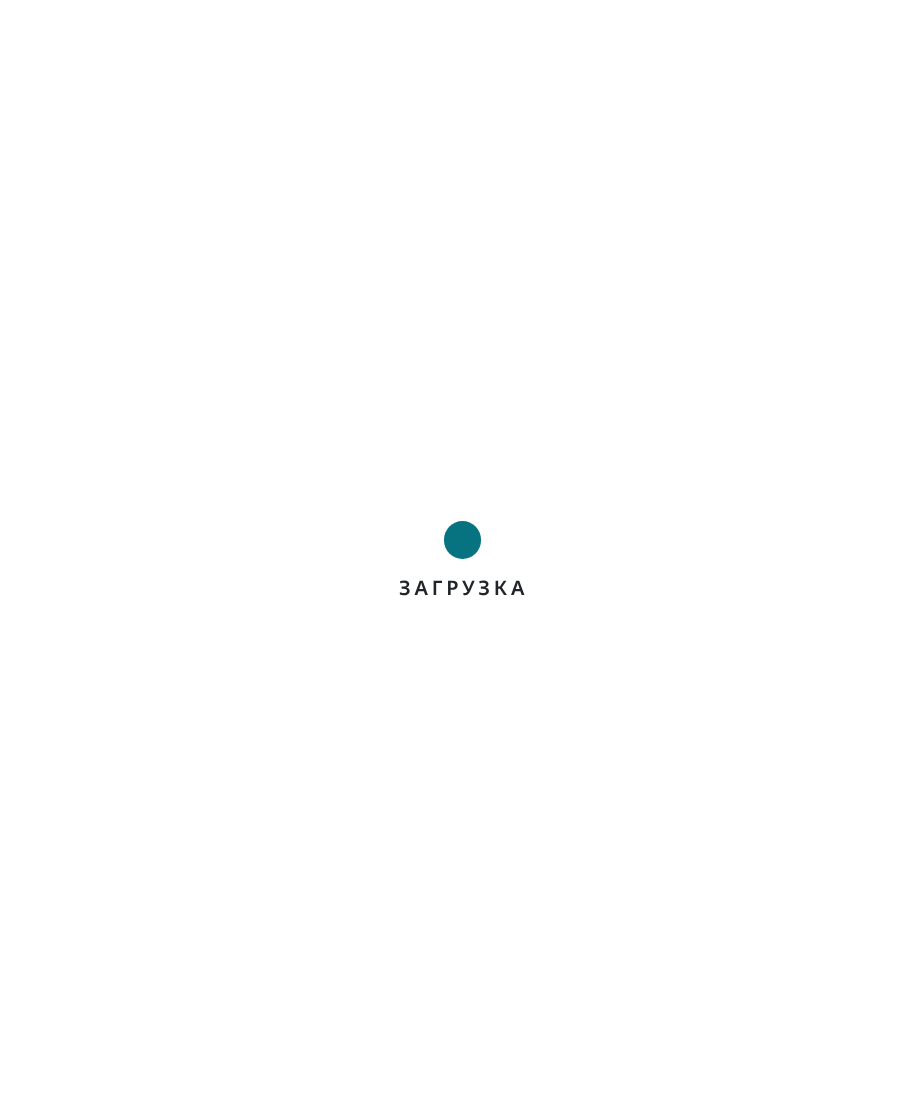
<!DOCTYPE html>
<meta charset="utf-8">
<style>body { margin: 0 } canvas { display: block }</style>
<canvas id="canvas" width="923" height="1117"></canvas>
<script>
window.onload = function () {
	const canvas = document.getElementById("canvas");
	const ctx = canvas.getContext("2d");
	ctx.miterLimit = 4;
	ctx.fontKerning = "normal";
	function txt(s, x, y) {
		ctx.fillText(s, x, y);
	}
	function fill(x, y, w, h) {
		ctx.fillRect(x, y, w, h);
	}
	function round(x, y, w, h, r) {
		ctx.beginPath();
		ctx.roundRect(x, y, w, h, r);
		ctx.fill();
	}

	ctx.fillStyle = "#FFFFFF";
	fill(0, 0, 923, 1117);
	ctx.fillStyle = "#087380";
	round(444, 521, 37, 38, 18.5);
	ctx.letterSpacing = "3.75px";
	ctx.font = "600 20px Noto Sans";
	ctx.fillStyle = "#212529";
	txt("ЗАГРУЗКА", 399, 595);
};
</script>
